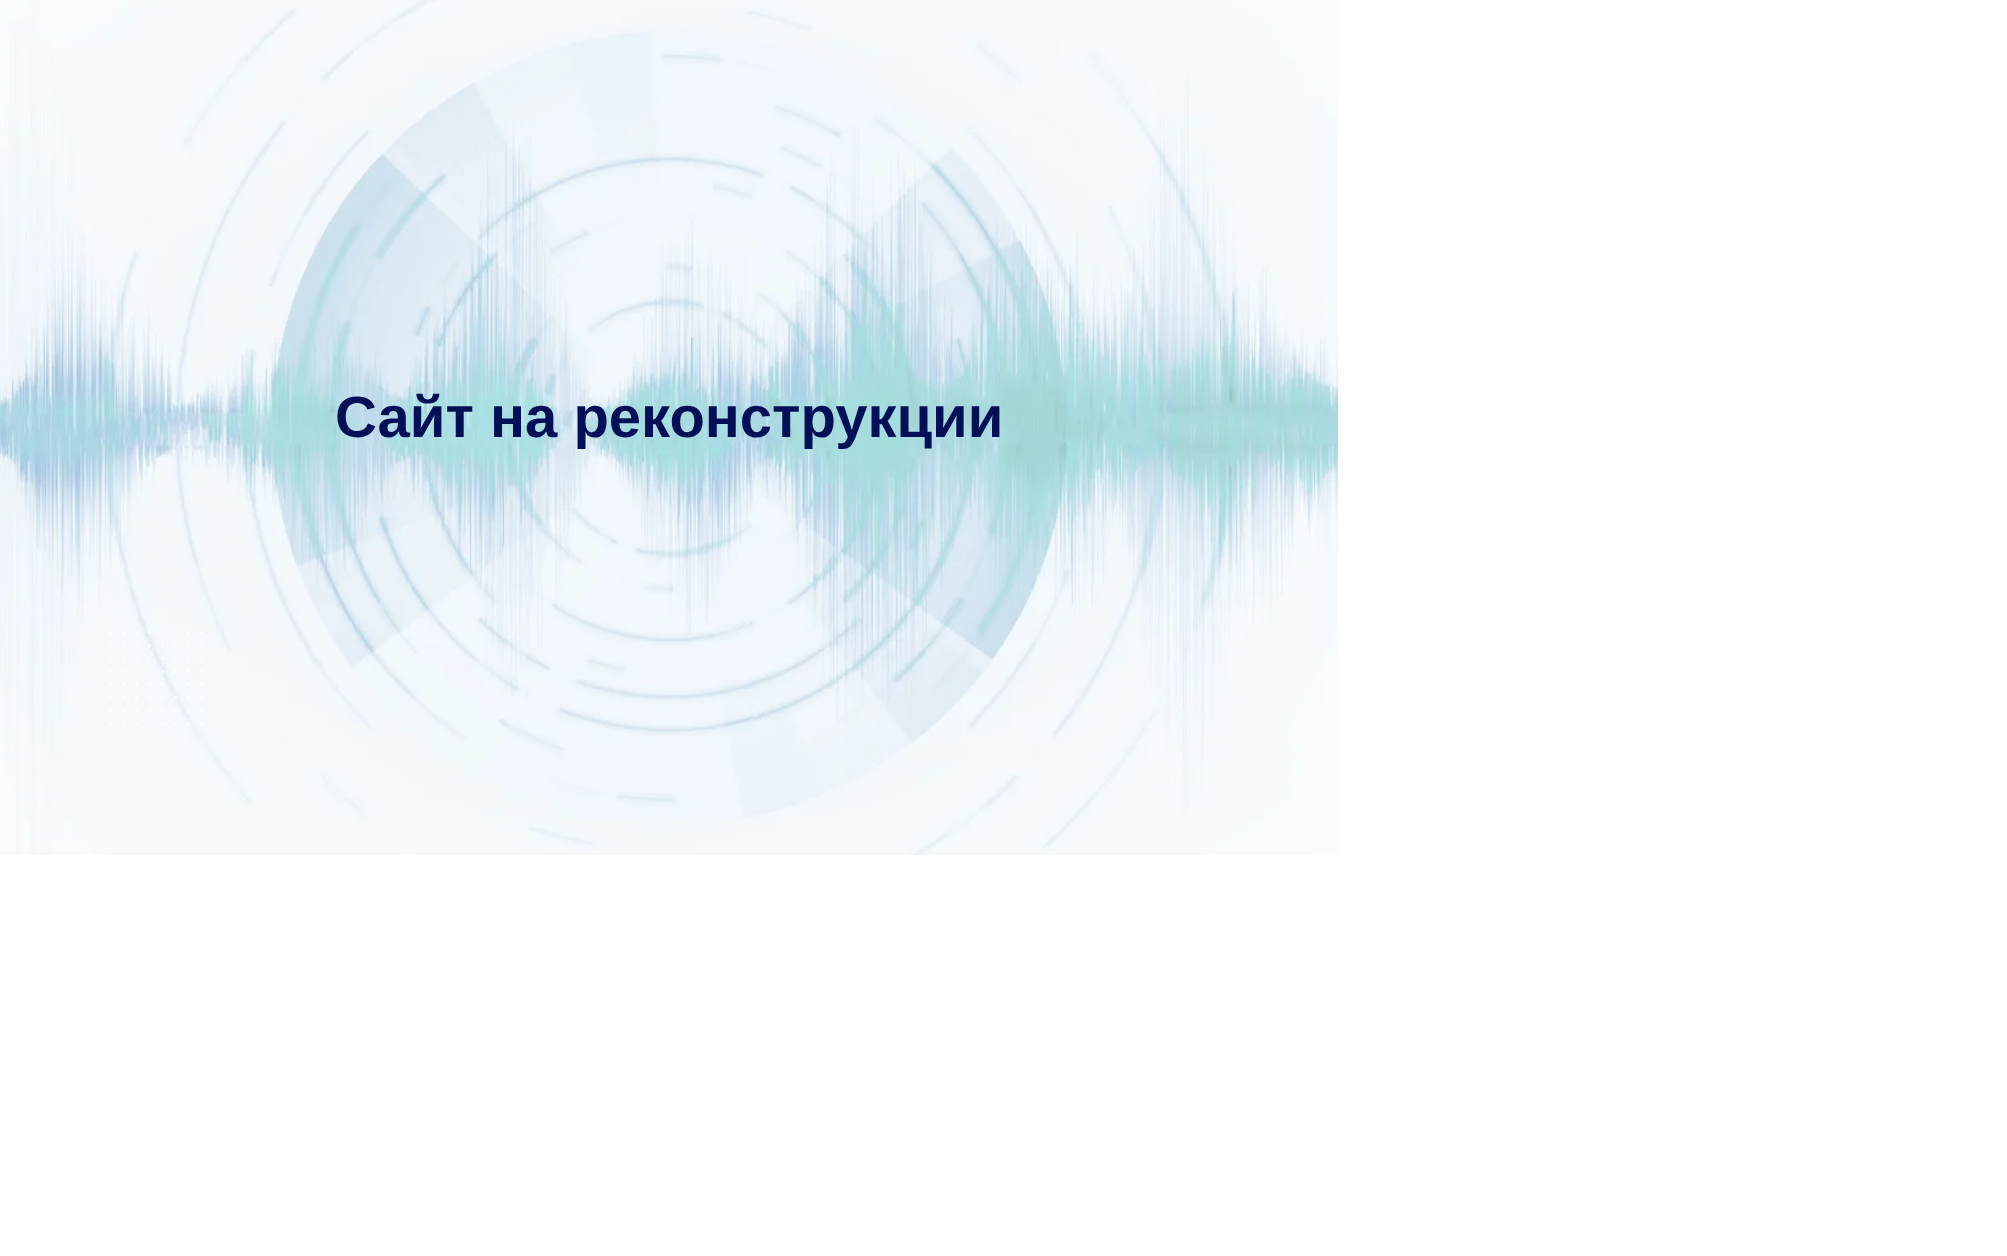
<!DOCTYPE html>
<meta charset="utf-8">
<style>body { margin: 0 } canvas { display: block }</style>
<canvas id="canvas" width="2007" height="1256"></canvas>
<img id="img1" src="img_01.png" hidden>
<img id="img2" src="img_02.png" hidden>
<script>
window.onload = function () {
	const canvas = document.getElementById("canvas");
	const ctx = canvas.getContext("2d");
	ctx.miterLimit = 4;
	ctx.fontKerning = "normal";
	function txt(s, x, y) {
		ctx.fillText(s, x, y);
	}
	function fill(x, y, w, h) {
		ctx.fillRect(x, y, w, h);
	}
	function img(id, x, y, w, h) {
		ctx.drawImage(document.getElementById(id), x, y, w, h);
	}

	ctx.fillStyle = "#FFFFFF";
	fill(0, 0, 2007, 1256);
	img("img1", 0, 0, 1338, 855);
	img("img2", 109, 631, 94, 94);
	ctx.font = "bold 58px Liberation Sans";
	ctx.fillStyle = "#030F57";
	txt("Сайт на реконструкции", 335, 437);
};
</script>
